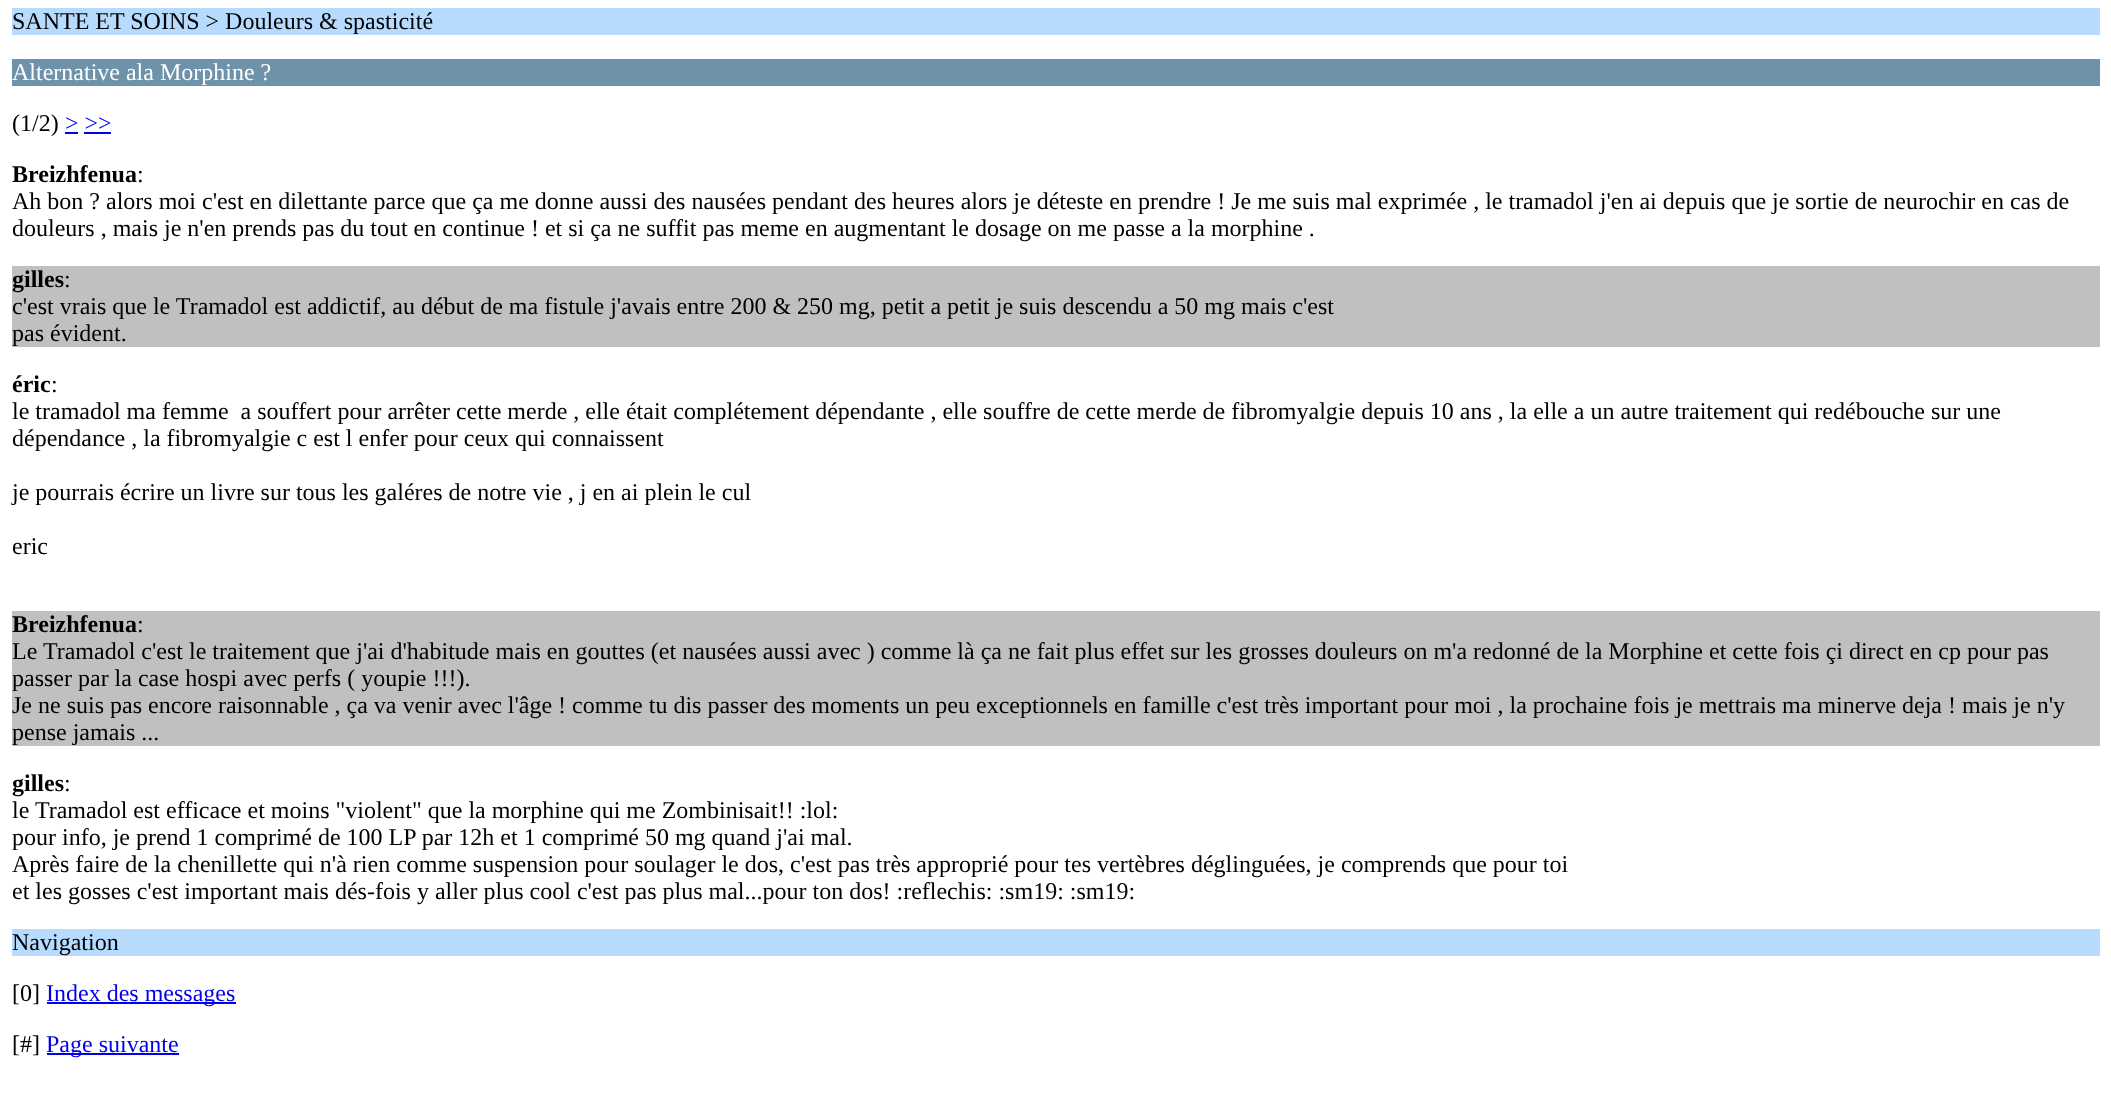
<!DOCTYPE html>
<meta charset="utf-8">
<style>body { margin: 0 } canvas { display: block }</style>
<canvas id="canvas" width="2111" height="1097"></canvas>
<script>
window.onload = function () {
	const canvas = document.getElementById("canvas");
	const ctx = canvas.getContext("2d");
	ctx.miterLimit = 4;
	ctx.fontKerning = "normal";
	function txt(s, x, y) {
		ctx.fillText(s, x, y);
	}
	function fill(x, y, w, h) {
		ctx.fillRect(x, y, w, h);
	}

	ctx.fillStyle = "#FFFFFF";
	fill(0, 0, 2111, 1097);
	ctx.fillStyle = "#B6DBFF";
	fill(12, 8, 2088, 27);
	ctx.fillStyle = "#6D92AA";
	fill(12, 59, 2088, 27);
	ctx.fillStyle = "#0000EE";
	fill(65, 132, 13, 2);
	fill(84, 132, 27, 2);
	ctx.fillStyle = "#C0C0C0";
	fill(12, 266, 2088, 81);
	fill(12, 611, 2088, 135);
	ctx.fillStyle = "#B6DBFF";
	fill(12, 929, 2088, 27);
	ctx.fillStyle = "#0000EE";
	fill(47, 1002, 189, 2);
	fill(47, 1053, 132, 2);
	ctx.font = "24px Liberation Serif";
	ctx.fillStyle = "#000000";
	txt("SANTE ET SOINS > Douleurs & spasticité", 12, 29);
	ctx.fillStyle = "#FFFFFF";
	txt("Alternative ala Morphine ?", 12, 80);
	ctx.fillStyle = "#000000";
	txt("(1/2)", 12, 131);
	ctx.fillStyle = "#0000EE";
	txt("> >>", 65, 131);
	ctx.font = "bold 24px Liberation Serif";
	ctx.fillStyle = "#000000";
	txt("Breizhfenua", 12, 182);
	ctx.font = "24px Liberation Serif";
	txt(":", 137, 182);
	txt("Ah bon ? alors moi c'est en dilettante parce que ça me donne aussi des nausées pendant des heures alors je déteste en prendre ! Je me suis mal exprimée , le tramadol j'en ai depuis que je sortie de neurochir en cas de", 12, 209);
	txt("douleurs , mais je n'en prends pas du tout en continue ! et si ça ne suffit pas meme en augmentant le dosage on me passe a la morphine .", 12, 236);
	ctx.font = "bold 24px Liberation Serif";
	txt("gilles", 12, 287);
	ctx.font = "24px Liberation Serif";
	txt(":", 64, 287);
	txt("c'est vrais que le Tramadol est addictif, au début de ma fistule j'avais entre 200 & 250 mg, petit a petit je suis descendu a 50 mg mais c'est", 12, 314);
	txt("pas évident.", 12, 341);
	ctx.font = "bold 24px Liberation Serif";
	txt("éric", 12, 392);
	ctx.font = "24px Liberation Serif";
	txt(":", 51, 392);
	txt("le tramadol ma femme  a souffert pour arrêter cette merde , elle était complétement dépendante , elle souffre de cette merde de fibromyalgie depuis 10 ans , la elle a un autre traitement qui redébouche sur une", 12, 419);
	txt("dépendance , la fibromyalgie c est l enfer pour ceux qui connaissent", 12, 446);
	txt("je pourrais écrire un livre sur tous les galéres de notre vie , j en ai plein le cul", 12, 500);
	txt("eric", 12, 554);
	ctx.font = "bold 24px Liberation Serif";
	txt("Breizhfenua", 12, 632);
	ctx.font = "24px Liberation Serif";
	txt(":", 137, 632);
	txt("Le Tramadol c'est le traitement que j'ai d'habitude mais en gouttes (et nausées aussi avec ) comme là ça ne fait plus effet sur les grosses douleurs on m'a redonné de la Morphine et cette fois çi direct en cp pour pas", 12, 659);
	txt("passer par la case hospi avec perfs ( youpie !!!).", 12, 686);
	txt("Je ne suis pas encore raisonnable , ça va venir avec l'âge ! comme tu dis passer des moments un peu exceptionnels en famille c'est très important pour moi , la prochaine fois je mettrais ma minerve deja ! mais je n'y", 12, 713);
	txt("pense jamais ...", 12, 740);
	ctx.font = "bold 24px Liberation Serif";
	txt("gilles", 12, 791);
	ctx.font = "24px Liberation Serif";
	txt(":", 64, 791);
	txt("le Tramadol est efficace et moins \"violent\" que la morphine qui me Zombinisait!! :lol:", 12, 818);
	txt("pour info, je prend 1 comprimé de 100 LP par 12h et 1 comprimé 50 mg quand j'ai mal.", 12, 845);
	txt("Après faire de la chenillette qui n'à rien comme suspension pour soulager le dos, c'est pas très approprié pour tes vertèbres déglinguées, je comprends que pour toi", 12, 872);
	txt("et les gosses c'est important mais dés-fois y aller plus cool c'est pas plus mal...pour ton dos! :reflechis: :sm19: :sm19:", 12, 899);
	txt("Navigation", 12, 950);
	txt("[0]", 12, 1001);
	ctx.fillStyle = "#0000EE";
	txt("Index des messages", 46, 1001);
	ctx.fillStyle = "#000000";
	txt("[#]", 12, 1052);
	ctx.fillStyle = "#0000EE";
	txt("Page suivante", 46, 1052);
};
</script>
